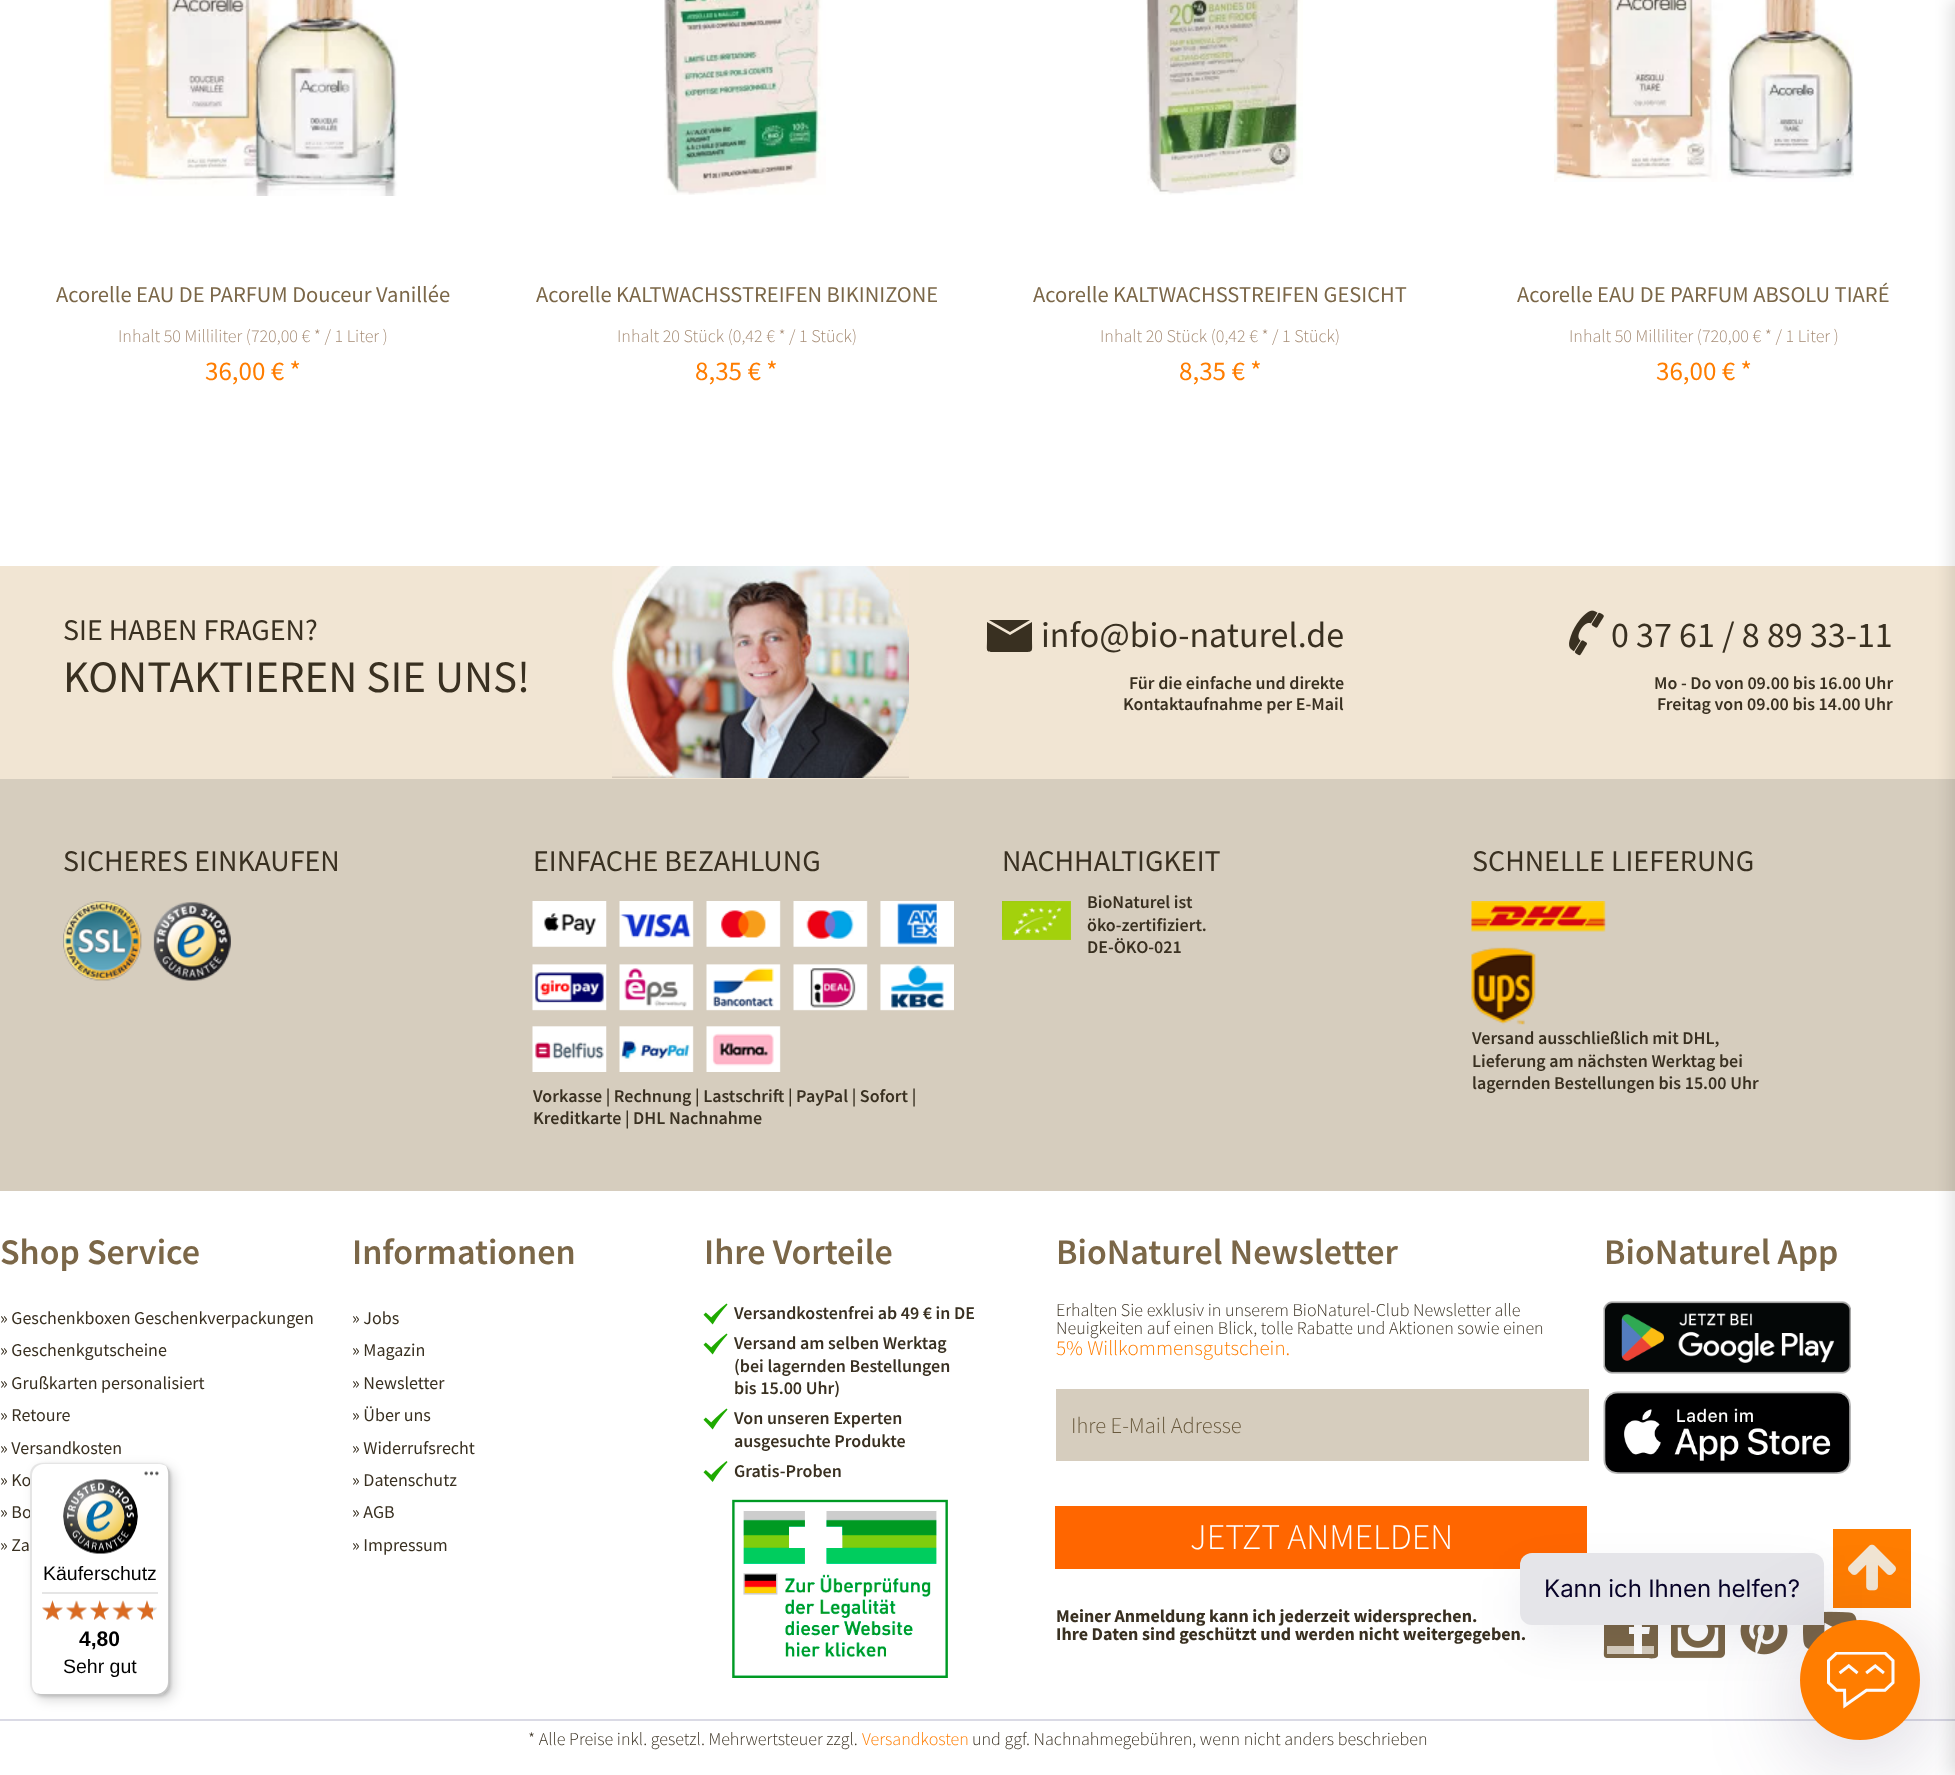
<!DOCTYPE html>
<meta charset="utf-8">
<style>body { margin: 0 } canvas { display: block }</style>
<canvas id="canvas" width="1955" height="1775"></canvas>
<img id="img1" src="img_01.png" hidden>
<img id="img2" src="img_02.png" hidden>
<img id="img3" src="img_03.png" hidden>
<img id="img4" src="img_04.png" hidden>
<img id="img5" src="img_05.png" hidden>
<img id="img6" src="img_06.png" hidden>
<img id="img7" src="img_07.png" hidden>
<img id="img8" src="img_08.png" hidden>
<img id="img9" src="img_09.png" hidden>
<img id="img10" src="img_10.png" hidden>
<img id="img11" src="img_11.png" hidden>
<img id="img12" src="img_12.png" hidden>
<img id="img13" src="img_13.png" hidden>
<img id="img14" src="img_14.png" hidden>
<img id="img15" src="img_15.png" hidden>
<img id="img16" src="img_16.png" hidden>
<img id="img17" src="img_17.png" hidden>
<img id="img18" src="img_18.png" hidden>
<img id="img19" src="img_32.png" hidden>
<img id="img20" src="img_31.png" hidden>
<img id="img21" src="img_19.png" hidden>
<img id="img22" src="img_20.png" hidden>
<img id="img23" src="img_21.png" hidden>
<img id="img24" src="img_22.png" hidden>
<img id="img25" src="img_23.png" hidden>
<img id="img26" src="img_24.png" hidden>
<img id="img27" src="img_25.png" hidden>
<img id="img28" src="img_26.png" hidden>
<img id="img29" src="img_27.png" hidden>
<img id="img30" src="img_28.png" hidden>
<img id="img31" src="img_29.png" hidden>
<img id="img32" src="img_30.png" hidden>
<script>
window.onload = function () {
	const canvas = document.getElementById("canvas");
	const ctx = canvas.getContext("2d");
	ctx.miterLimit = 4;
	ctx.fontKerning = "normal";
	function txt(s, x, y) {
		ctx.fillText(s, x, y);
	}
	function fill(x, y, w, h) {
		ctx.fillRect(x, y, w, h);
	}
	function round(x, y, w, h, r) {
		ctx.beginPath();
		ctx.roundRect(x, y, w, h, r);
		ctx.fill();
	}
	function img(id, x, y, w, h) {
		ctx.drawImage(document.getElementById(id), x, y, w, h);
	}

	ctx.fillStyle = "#FFFFFF";
	fill(0, 0, 1955, 1775);
	img("img1", 104, 0, 294, 196);
	img("img2", 664, 0, 162, 195);
	img("img3", 1146, 0, 157, 195);
	img("img4", 1554, 0, 300, 182);
	ctx.fillStyle = "#F1E5D3";
	fill(0, 566, 1955, 213);
	ctx.fillStyle = "#D6CDBE";
	fill(0, 779, 1955, 412);
	ctx.fillStyle = "#DADAE5";
	fill(0, 1719, 1955, 2);
	ctx.fillStyle = "rgba(0, 0, 0, 0.1)";
	ctx.filter = "blur(7.5px)";
	ctx.beginPath();
	ctx.rect(1949, 0, 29, 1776);
	ctx.fill();
	ctx.filter = "none";
	img("img5", 612, 566, 297, 212);
	ctx.fillStyle = "#393021";
	ctx.beginPath();
	ctx.moveTo(1010, 632);
	ctx.lineTo(1030, 620);
	ctx.lineTo(989, 620);
	ctx.closePath();
	ctx.moveTo(1010, 635);
	ctx.lineTo(987, 622);
	ctx.lineTo(987, 640);
	ctx.bezierCurveTo(987, 652, 985, 652, 996, 652);
	ctx.lineTo(1023, 652);
	ctx.bezierCurveTo(1034, 652, 1032, 652, 1032, 640);
	ctx.lineTo(1032, 622);
	ctx.closePath();
	ctx.fill();
	img("img6", 1569, 610, 35, 46);
	img("img7", 63, 901, 168, 80);
	img("img8", 532, 901, 422, 171);
	img("img9", 1002, 901, 69, 39);
	img("img10", 1471, 901, 135, 124);
	img("img11", 703, 1303, 25, 22);
	img("img11", 703, 1333, 25, 22);
	img("img11", 703, 1408, 25, 22);
	img("img12", 703, 1461, 25, 21);
	img("img13", 732, 1499, 216, 179);
	ctx.fillStyle = "#D6CDBE";
	fill(1056, 1389, 533, 72);
	ctx.fillStyle = "#FF6600";
	fill(1055, 1506, 532, 63);
	img("img14", 1603, 1301, 248, 73);
	img("img15", 1603, 1391, 248, 83);
	ctx.fillStyle = "#7B6748";
	ctx.beginPath();
	ctx.moveTo(1658, 1655);
	ctx.bezierCurveTo(1658, 1660, 1648, 1658, 1646, 1658);
	ctx.lineTo(1615, 1658);
	ctx.bezierCurveTo(1602, 1658, 1604, 1659, 1604, 1647);
	ctx.lineTo(1604, 1615);
	ctx.bezierCurveTo(1604, 1603, 1602, 1604, 1615, 1604);
	ctx.lineTo(1646, 1604);
	ctx.bezierCurveTo(1659, 1604, 1658, 1603, 1658, 1615);
	ctx.closePath();
	ctx.fill();
	ctx.fillStyle = "#D6CDBE";
	fill(1607, 1646, 47, 8);
	ctx.fillStyle = "#FFFFFF";
	ctx.beginPath();
	ctx.moveTo(1634, 1654);
	ctx.lineTo(1634, 1634);
	ctx.lineTo(1629, 1634);
	ctx.lineTo(1629, 1627);
	ctx.lineTo(1634, 1627);
	ctx.bezierCurveTo(1634, 1615, 1636, 1610, 1650, 1612);
	ctx.lineTo(1649, 1619);
	ctx.bezierCurveTo(1640, 1618, 1642, 1620, 1642, 1627);
	ctx.lineTo(1650, 1627);
	ctx.lineTo(1649, 1634);
	ctx.lineTo(1642, 1634);
	ctx.lineTo(1642, 1654);
	ctx.closePath();
	ctx.fill();
	img("img16", 1671, 1625, 54, 33);
	img("img17", 1740, 1625, 48, 30);
	img("img18", 1803, 1611, 54, 38);
	ctx.fillStyle = "rgba(0, 0, 0, 0.15)";
	ctx.filter = "blur(6px)";
	ctx.beginPath();
	ctx.roundRect(35, 1467, 139, 233, 12);
	ctx.fill();
	ctx.filter = "none";
	ctx.filter = "blur(1.5px)";
	ctx.beginPath();
	ctx.roundRect(32, 1464, 139, 233, 12);
	ctx.fill();
	ctx.filter = "none";
	ctx.fillStyle = "#FF7D00";
	fill(1833, 1529, 78, 79);
	img("img19", 1848, 1544, 48, 47);
	ctx.fillStyle = "rgba(6, 1, 39, 0.08)";
	ctx.filter = "blur(24px)";
	ctx.beginPath();
	ctx.roundRect(1526, 1577, 292, 60, 6);
	ctx.fill();
	ctx.filter = "none";
	ctx.fillStyle = "#E5E5E9";
	ctx.beginPath();
	ctx.roundRect(1520, 1553, 304, 72, [12, 12, 0, 12]);
	ctx.fill();
	ctx.fillStyle = "rgba(62, 47, 89, 0.24)";
	ctx.filter = "blur(48px)";
	ctx.beginPath();
	ctx.roundRect(1800, 1638, 120, 120, 60);
	ctx.fill();
	ctx.filter = "none";
	ctx.fillStyle = "#FF7D00";
	ctx.beginPath();
	ctx.arc(1860, 1680, 60, 0, Math.PI * 2);
	ctx.fill();
	img("img20", 1827, 1652, 68, 57);
	ctx.font = "22.5px Source Sans Pro";
	ctx.fillStyle = "#7B6748";
	txt("Acorelle EAU DE PARFUM Douceur Vanillée", 56, 302);
	ctx.font = "300 18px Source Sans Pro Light";
	ctx.fillStyle = "#A68C75";
	txt("Inhalt 50 Milliliter (720,00 € * / 1 Liter )", 118, 342);
	ctx.font = "27px Source Sans Pro";
	ctx.fillStyle = "#FF7D00";
	txt("36,00 € *", 205, 380);
	ctx.font = "22.5px Source Sans Pro";
	ctx.fillStyle = "#7B6748";
	txt("Acorelle KALTWACHSSTREIFEN BIKINIZONE", 536, 302);
	ctx.font = "300 18px Source Sans Pro Light";
	ctx.fillStyle = "#A68C75";
	txt("Inhalt 20 Stück (0,42 € * / 1 Stück)", 617, 342);
	ctx.font = "27px Source Sans Pro";
	ctx.fillStyle = "#FF7D00";
	txt("8,35 € *", 695, 380);
	ctx.font = "22.5px Source Sans Pro";
	ctx.fillStyle = "#7B6748";
	txt("Acorelle KALTWACHSSTREIFEN GESICHT", 1033, 302);
	ctx.font = "300 18px Source Sans Pro Light";
	ctx.fillStyle = "#A68C75";
	txt("Inhalt 20 Stück (0,42 € * / 1 Stück)", 1100, 342);
	ctx.font = "27px Source Sans Pro";
	ctx.fillStyle = "#FF7D00";
	txt("8,35 € *", 1179, 380);
	ctx.font = "22.5px Source Sans Pro";
	ctx.fillStyle = "#7B6748";
	txt("Acorelle EAU DE PARFUM ABSOLU TIARÉ", 1517, 302);
	ctx.font = "300 18px Source Sans Pro Light";
	ctx.fillStyle = "#A68C75";
	txt("Inhalt 50 Milliliter (720,00 € * / 1 Liter )", 1569, 342);
	ctx.font = "27px Source Sans Pro";
	ctx.fillStyle = "#FF7D00";
	txt("36,00 € *", 1656, 380);
	ctx.font = "30px Source Sans Pro";
	ctx.fillStyle = "#393021";
	txt("SIE HABEN FRAGEN?", 63, 640);
	ctx.font = "45px Source Sans Pro";
	txt("KONTAKTIEREN SIE UNS!", 63, 692);
	ctx.font = "36px Source Sans Pro";
	txt("info@bio-naturel.de", 1041, 647);
	ctx.font = "600 18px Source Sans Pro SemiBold";
	txt("Für die einfache und direkte", 1129, 689);
	txt("Kontaktaufnahme per E-Mail", 1123, 710);
	ctx.font = "36px Source Sans Pro";
	txt("0 37 61 / 8 89 33-11", 1611, 647);
	ctx.font = "600 18px Source Sans Pro SemiBold";
	txt("Mo - Do von 09.00 bis 16.00 Uhr", 1654, 689);
	txt("Freitag von 09.00 bis 14.00 Uhr", 1657, 710);
	ctx.font = "30px Source Sans Pro";
	txt("SICHERES EINKAUFEN", 63, 871);
	txt("EINFACHE BEZAHLUNG", 533, 871);
	ctx.font = "600 18px Source Sans Pro SemiBold";
	txt("Vorkasse | Rechnung | Lastschrift | PayPal | Sofort |", 533, 1102);
	txt("Kreditkarte | DHL Nachnahme", 533, 1124);
	ctx.font = "30px Source Sans Pro";
	txt("NACHHALTIGKEIT", 1002, 871);
	ctx.font = "600 18px Source Sans Pro SemiBold";
	txt("BioNaturel ist", 1087, 908);
	txt("öko-zertifiziert.", 1087, 931);
	txt("DE-ÖKO-021", 1087, 953);
	ctx.font = "30px Source Sans Pro";
	txt("SCHNELLE LIEFERUNG", 1472, 871);
	ctx.font = "600 18px Source Sans Pro SemiBold";
	txt("Versand ausschließlich mit DHL,", 1472, 1044);
	txt("Lieferung am nächsten Werktag bei", 1472, 1067);
	txt("lagernden Bestellungen bis 15.00 Uhr", 1472, 1089);
	ctx.font = "600 36px Source Sans Pro SemiBold";
	ctx.fillStyle = "#7B6748";
	txt("Shop Service", 0, 1264);
	ctx.font = "18px Source Sans Pro";
	ctx.fillStyle = "#393021";
	txt("» Geschenkboxen Geschenkverpackungen", 0, 1324);
	txt("» Geschenkgutscheine", 0, 1356);
	txt("» Grußkarten personalisiert", 0, 1389);
	txt("» Retoure", 0, 1421);
	txt("» Versandkosten", 0, 1454);
	txt("» Ko", 0, 1486);
	txt("» Bo", 0, 1518);
	txt("» Za", 0, 1551);
	ctx.font = "600 36px Source Sans Pro SemiBold";
	ctx.fillStyle = "#7B6748";
	txt("Informationen", 352, 1264);
	ctx.font = "18px Source Sans Pro";
	ctx.fillStyle = "#393021";
	txt("» Jobs", 352, 1324);
	txt("» Magazin", 352, 1356);
	txt("» Newsletter", 352, 1389);
	txt("» Über uns", 352, 1421);
	txt("» Widerrufsrecht", 352, 1454);
	txt("» Datenschutz", 352, 1486);
	txt("» AGB", 352, 1518);
	txt("» Impressum", 352, 1551);
	ctx.font = "600 36px Source Sans Pro SemiBold";
	ctx.fillStyle = "#7B6748";
	txt("Ihre Vorteile", 704, 1264);
	ctx.font = "600 18px Source Sans Pro SemiBold";
	ctx.fillStyle = "#393021";
	txt("Versandkostenfrei ab 49 € in DE", 734, 1319);
	txt("Versand am selben Werktag", 734, 1349);
	txt("(bei lagernden Bestellungen", 734, 1372);
	txt("bis 15.00 Uhr)", 734, 1394);
	txt("Von unseren Experten", 734, 1424);
	txt("ausgesuchte Produkte", 734, 1447);
	txt("Gratis-Proben", 734, 1477);
	ctx.font = "600 36px Source Sans Pro SemiBold";
	ctx.fillStyle = "#7B6748";
	txt("BioNaturel Newsletter", 1056, 1264);
	ctx.font = "300 18px Source Sans Pro Light";
	ctx.fillStyle = "#393021";
	txt("Erhalten Sie exklusiv in unserem BioNaturel-Club Newsletter alle", 1056, 1316);
	txt("Neuigkeiten auf einen Blick, tolle Rabatte und Aktionen sowie einen", 1056, 1334);
	ctx.font = "300 21px Source Sans Pro Light";
	ctx.fillStyle = "#FF7D00";
	txt("5% Willkommensgutschein.", 1056, 1355);
	ctx.font = "300 22.5px Source Sans Pro Light";
	ctx.fillStyle = "#69593D";
	txt("Ihre E-Mail Adresse", 1071, 1433);
	ctx.font = "300 36px Source Sans Pro Light";
	ctx.fillStyle = "#FFFFFF";
	txt("JETZT ANMELDEN", 1190, 1549);
	ctx.font = "bold 18px Source Sans Pro";
	ctx.fillStyle = "#393021";
	txt("Meiner Anmeldung kann ich jederzeit widersprechen.", 1056, 1622);
	txt("Ihre Daten sind geschützt und werden nicht weitergegeben.", 1056, 1640);
	ctx.font = "600 36px Source Sans Pro SemiBold";
	ctx.fillStyle = "#7B6748";
	txt("BioNaturel App", 1604, 1264);
	ctx.font = "300 18px Source Sans Pro Light";
	ctx.fillStyle = "#393021";
	txt("* Alle Preise inkl. gesetzl. Mehrwertsteuer zzgl.", 528, 1745);
	ctx.fillStyle = "#FF7D00";
	txt("Versandkosten", 862, 1745);
	ctx.fillStyle = "#393021";
	txt("und ggf. Nachnahmegebühren, wenn nicht anders beschrieben", 972, 1745);
	ctx.fillStyle = "#FFFFFF";
	round(30, 1463, 140, 232, 12);
	ctx.fillStyle = "rgba(0, 0, 0, 0.1)";
	ctx.beginPath();
	ctx.moveTo(44, 1464);
	ctx.lineTo(159, 1464);
	ctx.bezierCurveTo(162, 1464, 164, 1465, 166, 1466);
	ctx.bezierCurveTo(164, 1464, 161, 1463, 158, 1463);
	ctx.lineTo(42, 1463);
	ctx.bezierCurveTo(35, 1463, 30, 1468, 30, 1475);
	ctx.lineTo(30, 1683);
	ctx.bezierCurveTo(30, 1688, 33, 1692, 37, 1694);
	ctx.bezierCurveTo(34, 1692, 32, 1688, 32, 1684);
	ctx.lineTo(32, 1476);
	ctx.bezierCurveTo(32, 1469, 37, 1464, 44, 1464);
	ctx.closePath();
	ctx.fill();
	ctx.fillStyle = "rgba(0, 0, 0, 0.2)";
	ctx.beginPath();
	ctx.moveTo(35, 1692);
	ctx.bezierCurveTo(37, 1694, 39, 1695, 42, 1695);
	ctx.lineTo(158, 1695);
	ctx.bezierCurveTo(165, 1695, 170, 1690, 170, 1683);
	ctx.lineTo(170, 1475);
	ctx.bezierCurveTo(170, 1471, 168, 1468, 166, 1466);
	ctx.bezierCurveTo(167, 1468, 168, 1470, 168, 1473);
	ctx.lineTo(168, 1682);
	ctx.bezierCurveTo(168, 1688, 163, 1694, 156, 1694);
	ctx.lineTo(40, 1694);
	ctx.bezierCurveTo(38, 1694, 36, 1693, 35, 1692);
	ctx.closePath();
	ctx.fill();
	ctx.fillStyle = "rgba(50, 50, 50, 0.2)";
	ctx.beginPath();
	ctx.moveTo(34, 1692);
	ctx.bezierCurveTo(36, 1694, 39, 1695, 42, 1695);
	ctx.lineTo(158, 1695);
	ctx.bezierCurveTo(165, 1695, 170, 1690, 170, 1683);
	ctx.lineTo(170, 1475);
	ctx.bezierCurveTo(170, 1471, 168, 1468, 166, 1466);
	ctx.bezierCurveTo(168, 1468, 169, 1471, 169, 1474);
	ctx.lineTo(169, 1682);
	ctx.bezierCurveTo(169, 1689, 163, 1694, 157, 1694);
	ctx.lineTo(41, 1694);
	ctx.bezierCurveTo(38, 1694, 36, 1693, 34, 1692);
	ctx.closePath();
	ctx.fill();
	ctx.fillStyle = "rgba(255, 255, 255, 0.3)";
	ctx.beginPath();
	ctx.moveTo(33, 1691);
	ctx.bezierCurveTo(35, 1693, 38, 1695, 42, 1695);
	ctx.lineTo(158, 1695);
	ctx.bezierCurveTo(165, 1695, 170, 1690, 170, 1683);
	ctx.lineTo(170, 1475);
	ctx.bezierCurveTo(170, 1471, 168, 1468, 166, 1466);
	ctx.bezierCurveTo(168, 1468, 169, 1471, 169, 1474);
	ctx.lineTo(169, 1682);
	ctx.bezierCurveTo(169, 1689, 163, 1694, 157, 1694);
	ctx.lineTo(41, 1694);
	ctx.bezierCurveTo(38, 1694, 35, 1693, 33, 1691);
	ctx.closePath();
	ctx.fill();
	img("img21", 144, 1471, 15, 5);
	img("img22", 63, 1479, 75, 75);
	ctx.font = "19.5px Liberation Sans";
	ctx.fillStyle = "#000000";
	txt("Käuferschutz", 43, 1580);
	ctx.fillStyle = "#E5E5E5";
	fill(42, 1592, 116, 2);
	img("img23", 42, 1600, 21, 20);
	img("img24", 66, 1601, 21, 19);
	img("img25", 90, 1600, 19, 20);
	img("img26", 113, 1601, 20, 19);
	img("img27", 137, 1600, 20, 20);
	img("img28", 42, 1600, 21, 20);
	img("img29", 66, 1600, 21, 20);
	img("img30", 90, 1600, 19, 20);
	img("img31", 112, 1600, 22, 20);
	img("img32", 137, 1600, 16, 20);
	ctx.font = "bold 21px Liberation Sans";
	ctx.fillStyle = "#000000";
	txt("4,80", 79, 1646);
	ctx.font = "19.5px Liberation Sans";
	txt("Sehr gut", 63, 1673);
	ctx.wordSpacing = "-0.5px";
	ctx.font = "24px Inter";
	ctx.fillStyle = "#060127";
	txt("Kann ich Ihnen helfen?", 1544, 1597);
};
</script>
